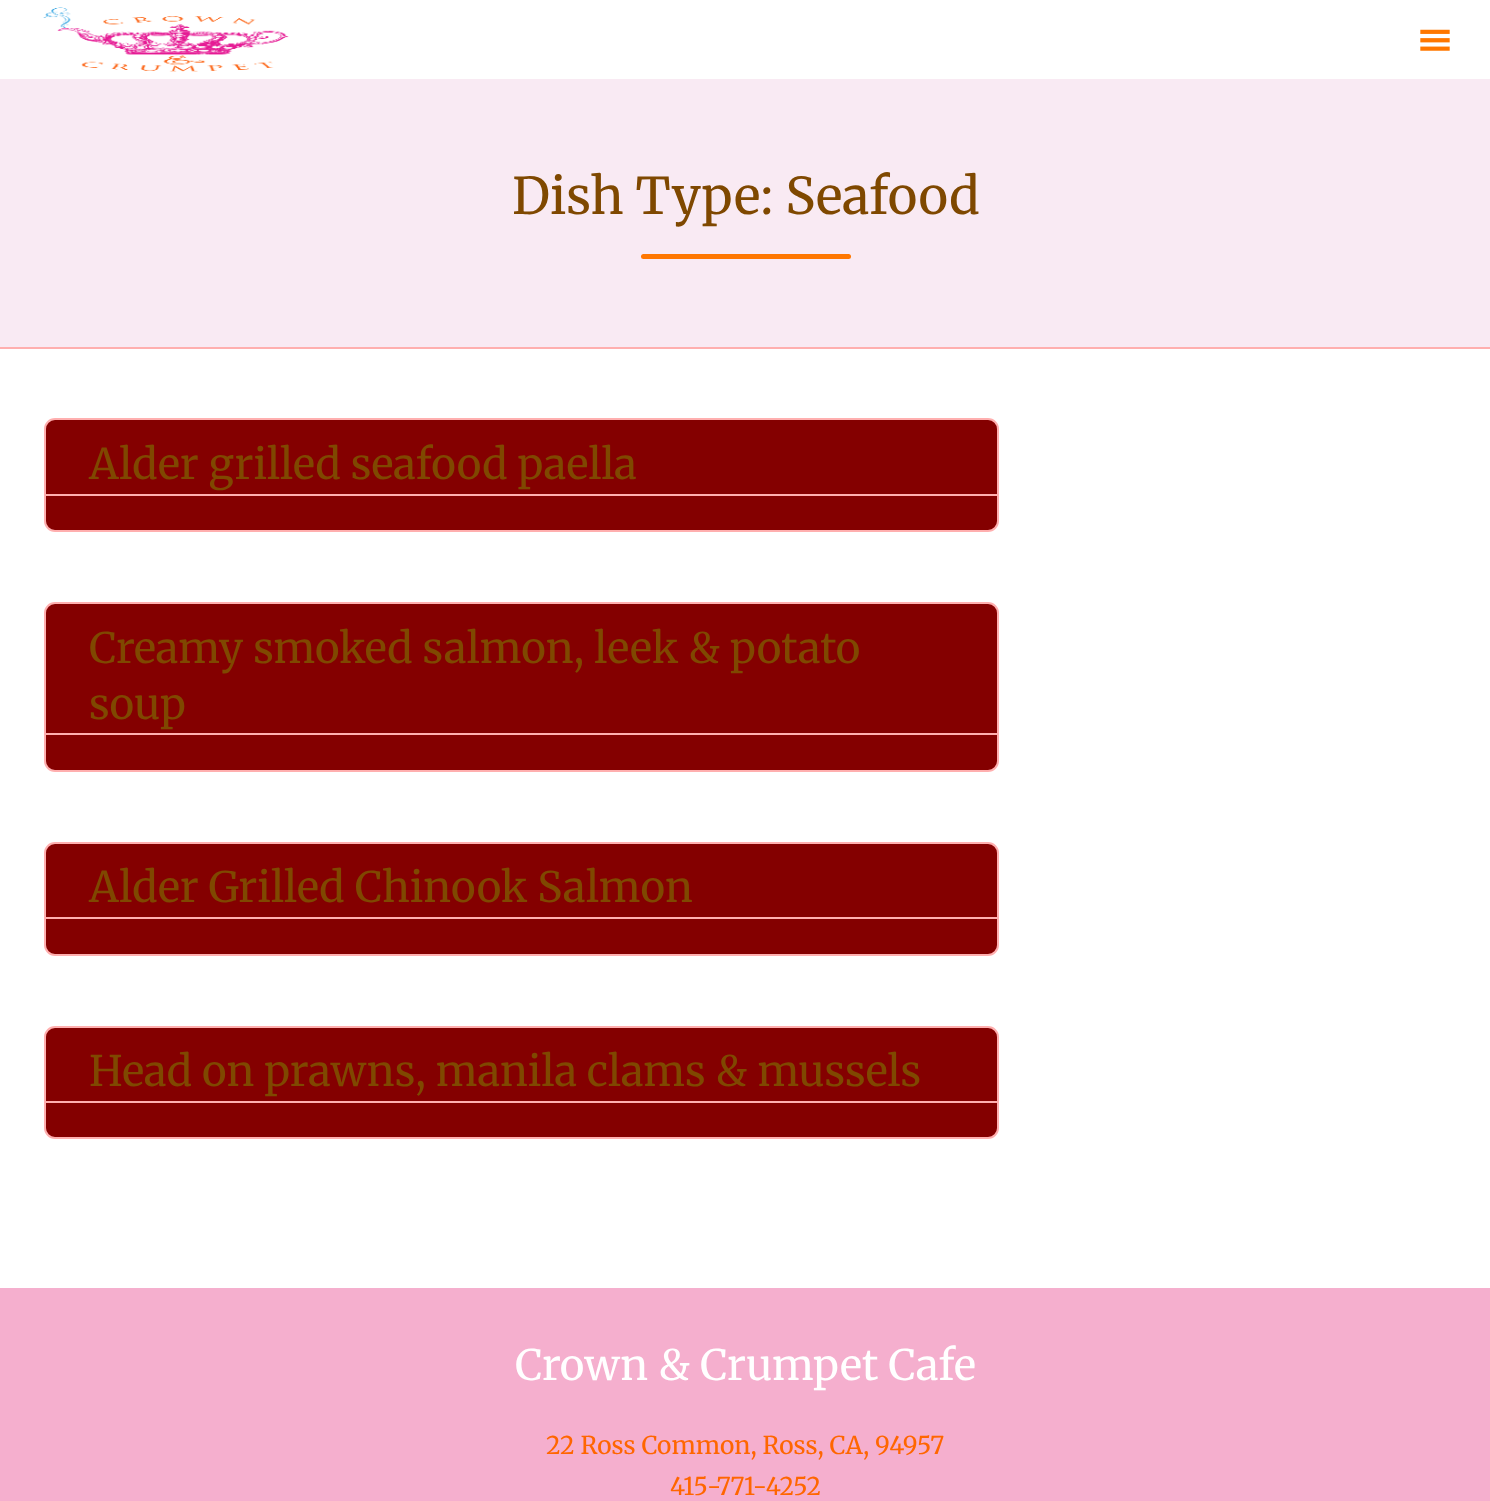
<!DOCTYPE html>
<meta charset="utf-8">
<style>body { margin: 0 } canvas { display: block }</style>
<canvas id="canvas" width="1490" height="1501"></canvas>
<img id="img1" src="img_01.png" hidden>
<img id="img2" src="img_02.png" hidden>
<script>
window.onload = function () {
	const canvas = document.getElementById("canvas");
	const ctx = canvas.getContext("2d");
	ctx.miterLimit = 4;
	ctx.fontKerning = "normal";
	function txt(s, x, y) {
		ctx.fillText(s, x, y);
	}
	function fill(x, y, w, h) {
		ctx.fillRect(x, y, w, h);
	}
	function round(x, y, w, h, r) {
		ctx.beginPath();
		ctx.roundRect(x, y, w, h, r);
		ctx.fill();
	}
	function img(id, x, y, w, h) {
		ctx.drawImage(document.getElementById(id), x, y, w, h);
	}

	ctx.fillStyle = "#F9EAF3";
	fill(0, 0, 1490, 1501);
	ctx.fillStyle = "#FFFFFF";
	fill(0, 0, 1490, 79);
	img("img1", 43, 7, 246, 65);
	img("img2", 1420, 29, 30, 22);
	ctx.fillStyle = "#FFAFAF";
	fill(0, 347, 1490, 2);
	ctx.fillStyle = "#FF7700";
	round(641, 254, 210, 5, 2.5);
	ctx.fillStyle = "#FFFFFF";
	fill(0, 349, 1490, 939);
	ctx.fillStyle = "#840000";
	ctx.beginPath();
	ctx.roundRect(45, 419, 953, 112, 10);
	ctx.fill();
	ctx.strokeStyle = "#FFAFAF";
	ctx.lineWidth = 2;
	ctx.stroke();
	ctx.fillStyle = "#FFAFAF";
	fill(46, 494, 952, 2);
	ctx.fillStyle = "#840000";
	ctx.beginPath();
	ctx.roundRect(45, 603, 953, 168, 10);
	ctx.fill();
	ctx.stroke();
	ctx.fillStyle = "#FFAFAF";
	fill(46, 733, 952, 2);
	ctx.fillStyle = "#840000";
	ctx.beginPath();
	ctx.roundRect(45, 843, 953, 112, 10);
	ctx.fill();
	ctx.stroke();
	ctx.fillStyle = "#FFAFAF";
	fill(46, 917, 952, 2);
	ctx.fillStyle = "#840000";
	ctx.beginPath();
	ctx.roundRect(45, 1027, 953, 111, 10);
	ctx.fill();
	ctx.stroke();
	ctx.fillStyle = "#FFAFAF";
	fill(46, 1101, 952, 2);
	ctx.fillStyle = "#F5AFCE";
	fill(0, 1288, 1490, 213);
	ctx.font = "50.5px Merriweather";
	ctx.fillStyle = "#7F4800";
	txt("Dish Type: Seafood", 512, 214);
	ctx.font = "42px Merriweather";
	txt("Alder grilled seafood paella", 89, 479);
	txt("Creamy smoked salmon, leek & potato", 89, 663);
	txt("soup", 89, 719);
	txt("Alder Grilled Chinook Salmon", 89, 902);
	txt("Head on prawns, manila clams & mussels", 89, 1086);
	ctx.fillStyle = "#FFFFFF";
	txt("Crown & Crumpet Cafe", 515, 1380);
	ctx.font = "24.5px Merriweather";
	ctx.fillStyle = "#FF6600";
	txt("22 Ross Common, Ross, CA, 94957", 546, 1454);
	txt("415-771-4252", 670, 1495);
};
</script>
